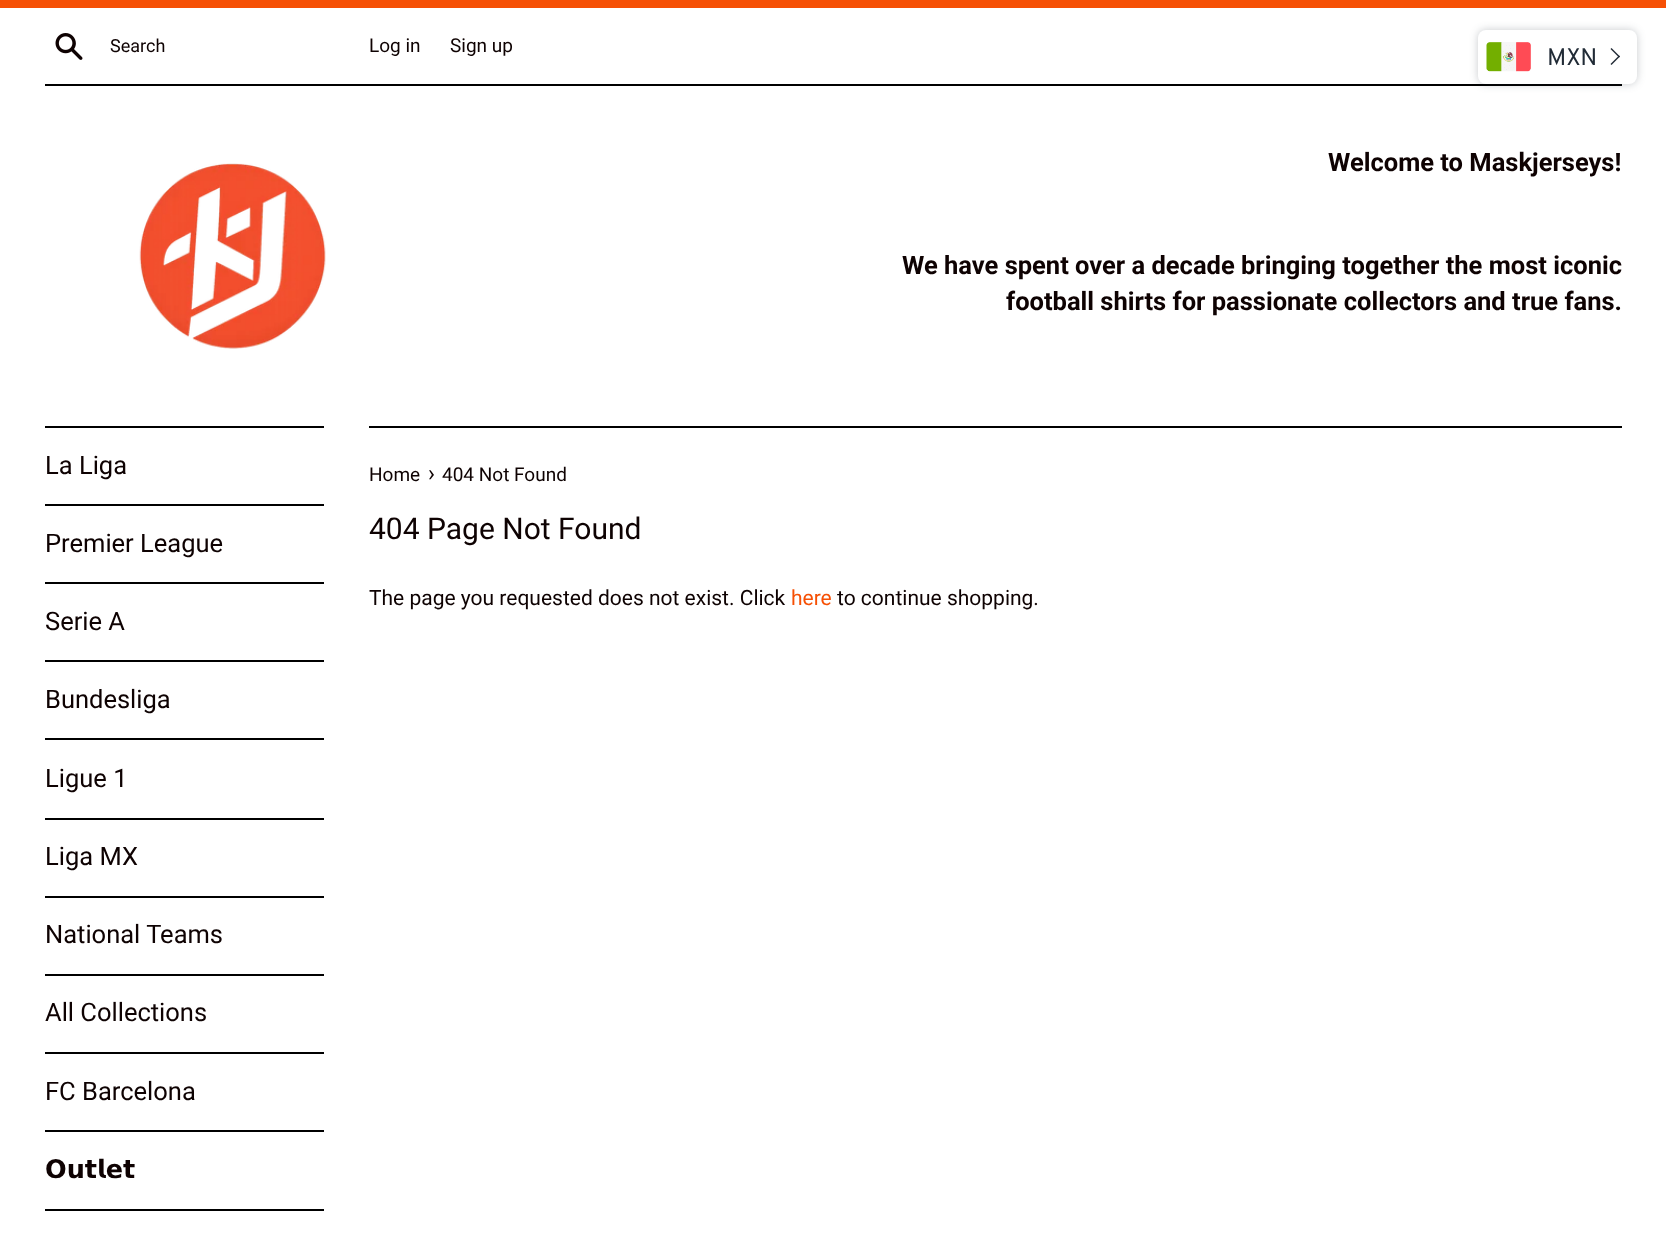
<!DOCTYPE html>
<meta charset="utf-8">
<style>body { margin: 0 } canvas { display: block }</style>
<canvas id="canvas" width="1666" height="1256"></canvas>
<img id="img1" src="img_01.png" hidden>
<img id="img2" src="img_02.png" hidden>
<img id="img3" src="img_03.png" hidden>
<script>
window.onload = function () {
	const canvas = document.getElementById("canvas");
	const ctx = canvas.getContext("2d");
	ctx.miterLimit = 4;
	ctx.fontKerning = "normal";
	function txt(s, x, y) {
		ctx.fillText(s, x, y);
	}
	function fill(x, y, w, h) {
		ctx.fillRect(x, y, w, h);
	}
	function round(x, y, w, h, r) {
		ctx.beginPath();
		ctx.roundRect(x, y, w, h, r);
		ctx.fill();
	}
	function img(id, x, y, w, h) {
		ctx.drawImage(document.getElementById(id), x, y, w, h);
	}

	ctx.fillStyle = "#FFFFFF";
	fill(0, 0, 1666, 1256);
	ctx.fillStyle = "#F65005";
	fill(0, 0, 1666, 8);
	img("img1", 55, 33, 28, 27);
	ctx.fillStyle = "#000000";
	fill(45, 84, 1577, 2);
	img("img2", 139, 163, 187, 186);
	ctx.fillStyle = "rgba(33, 43, 54, 0.25)";
	ctx.filter = "blur(4px)";
	ctx.beginPath();
	ctx.roundRect(1478, 30, 159, 54, 8);
	ctx.fill();
	ctx.filter = "none";
	ctx.fillStyle = "#FFFFFF";
	round(1478, 30, 159, 54, 8);
	img("img3", 1486, 42, 45, 30);
	ctx.fillStyle = "#212B36";
	ctx.beginPath();
	ctx.moveTo(1610.5, 49);
	ctx.lineTo(1611.5, 48);
	ctx.lineTo(1620, 56.5);
	ctx.lineTo(1619, 57.5);
	ctx.closePath();
	ctx.fill();
	ctx.beginPath();
	ctx.moveTo(1610.5, 64);
	ctx.lineTo(1619, 55.5);
	ctx.lineTo(1620, 56.5);
	ctx.lineTo(1611.5, 65);
	ctx.closePath();
	ctx.fill();
	ctx.fillStyle = "#000000";
	fill(45, 426, 279, 2);
	fill(45, 504, 279, 2);
	fill(45, 582, 279, 2);
	fill(45, 660, 279, 2);
	fill(45, 738, 279, 2);
	fill(45, 818, 279, 2);
	fill(45, 896, 279, 2);
	fill(45, 974, 279, 2);
	fill(45, 1052, 279, 2);
	fill(45, 1130, 279, 2);
	fill(45, 1209, 279, 2);
	fill(369, 426, 1253, 2);
	ctx.font = "18px Roboto";
	ctx.fillStyle = "#0E0202";
	txt("Search", 110, 52);
	ctx.font = "19px Roboto";
	txt("Log in", 369, 52);
	txt("Sign up", 450, 52);
	ctx.font = "bold 25.5px Roboto";
	txt("Welcome to Maskjerseys!", 1328, 171);
	txt("We have spent over a decade bringing together the most iconic", 902, 274);
	txt("football shirts for passionate collectors and true fans.", 1006, 310);
	ctx.font = "24px Overpass";
	ctx.fillStyle = "#212B36";
	txt("MXN", 1547, 65);
	ctx.font = "25.5px Roboto";
	ctx.fillStyle = "#0E0202";
	txt("La Liga", 45, 474);
	txt("Premier League", 45, 552);
	txt("Serie A", 45, 630);
	txt("Bundesliga", 45, 708);
	txt("Ligue 1", 45, 787);
	txt("Liga MX", 45, 865);
	txt("National Teams", 45, 943);
	txt("All Collections", 45, 1021);
	txt("FC Barcelona", 45, 1100);
	ctx.font = "bold 25.5px DejaVu Sans";
	txt("𝗢𝘂𝘁𝗹𝗲𝘁", 45, 1178);
	ctx.font = "19px Roboto";
	txt("Home", 369, 481);
	ctx.font = "23px Roboto";
	txt("›", 428, 481);
	ctx.font = "19px Roboto";
	txt("404 Not Found", 442, 481);
	ctx.font = "30px Roboto";
	txt("404 Page Not Found", 369, 539);
	ctx.font = "21px Roboto";
	txt("The page you requested does not exist. Click", 369, 605);
	ctx.fillStyle = "#F65005";
	txt("here", 791, 605);
	ctx.fillStyle = "#0E0202";
	txt("to continue shopping.", 837, 605);
};
</script>
